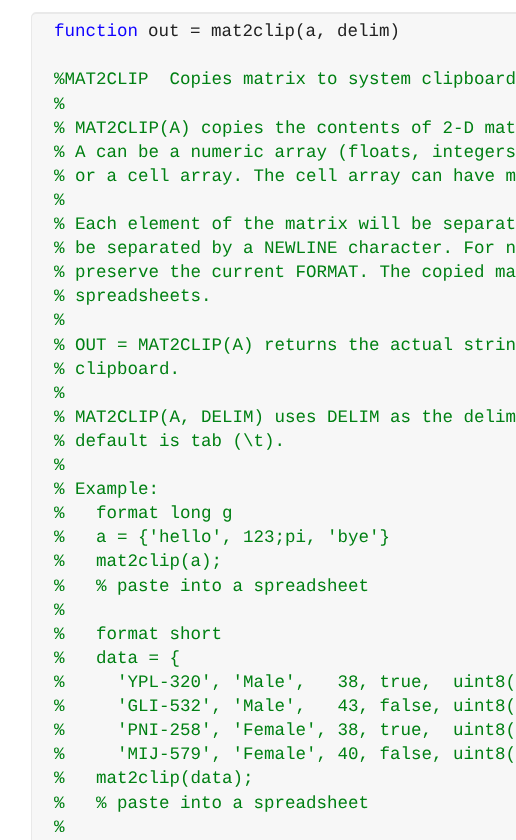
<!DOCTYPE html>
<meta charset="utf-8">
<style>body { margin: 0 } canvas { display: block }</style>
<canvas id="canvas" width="516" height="840"></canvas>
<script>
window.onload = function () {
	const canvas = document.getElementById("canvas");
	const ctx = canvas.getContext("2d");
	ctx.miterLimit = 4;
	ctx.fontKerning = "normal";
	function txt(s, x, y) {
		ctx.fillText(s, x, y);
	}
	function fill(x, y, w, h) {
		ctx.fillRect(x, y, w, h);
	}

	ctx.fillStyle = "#FFFFFF";
	fill(0, 0, 516, 840);
	ctx.fillStyle = "#F7F7F7";
	ctx.beginPath();
	ctx.roundRect(31, 13, 485, 827, [5, 0, 0, 0]);
	ctx.fill();
	ctx.fillStyle = "#E9E9E9";
	ctx.beginPath();
	ctx.moveTo(36, 12);
	ctx.lineTo(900, 12);
	ctx.bezierCurveTo(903, 12, 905, 15, 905, 18);
	ctx.lineTo(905, 44);
	ctx.lineTo(31, 44);
	ctx.lineTo(31, 18);
	ctx.bezierCurveTo(31, 15, 33, 12, 36, 12);
	ctx.closePath();
	ctx.moveTo(36, 14);
	ctx.lineTo(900, 14);
	ctx.bezierCurveTo(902, 14, 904, 15, 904, 18);
	ctx.lineTo(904, 44);
	ctx.lineTo(32, 44);
	ctx.lineTo(32, 18);
	ctx.bezierCurveTo(32, 15, 34, 14, 36, 14);
	ctx.closePath();
	ctx.fill("evenodd");
	fill(31, 44, 1, 796);
	ctx.font = "17.5px Liberation Mono";
	ctx.fillStyle = "#0E00FF";
	txt("function", 54, 36);
	ctx.fillStyle = "#212121";
	txt("out = mat2clip(a, delim)", 148, 36);
	ctx.fillStyle = "#008013";
	txt("%MAT2CLIP  Copies matrix to system clipboard", 54, 84);
	txt("%", 54, 109);
	txt("% MAT2CLIP(A) copies the contents of 2-D mat", 54, 133);
	txt("% A can be a numeric array (floats, integers", 54, 157);
	txt("% or a cell array. The cell array can have m", 54, 181);
	txt("%", 54, 205);
	txt("% Each element of the matrix will be separat", 54, 229);
	txt("% be separated by a NEWLINE character. For n", 54, 253);
	txt("% preserve the current FORMAT. The copied ma", 54, 277);
	txt("% spreadsheets.", 54, 301);
	txt("%", 54, 325);
	txt("% OUT = MAT2CLIP(A) returns the actual strin", 54, 350);
	txt("% clipboard.", 54, 374);
	txt("%", 54, 398);
	txt("% MAT2CLIP(A, DELIM) uses DELIM as the delim", 54, 422);
	txt("% default is tab (\\t).", 54, 446);
	txt("%", 54, 470);
	txt("% Example:", 54, 494);
	txt("%   format long g", 54, 518);
	txt("%   a = {'hello', 123;pi, 'bye'}", 54, 542);
	txt("%   mat2clip(a);", 54, 566);
	txt("%   % paste into a spreadsheet", 54, 591);
	txt("%", 54, 615);
	txt("%   format short", 54, 639);
	txt("%   data = {", 54, 663);
	txt("%     'YPL-320', 'Male',   38, true,  uint8(", 54, 687);
	txt("%     'GLI-532', 'Male',   43, false, uint8(", 54, 711);
	txt("%     'PNI-258', 'Female', 38, true,  uint8(", 54, 735);
	txt("%     'MIJ-579', 'Female', 40, false, uint8(", 54, 759);
	txt("%   mat2clip(data);", 54, 783);
	txt("%   % paste into a spreadsheet", 54, 808);
	txt("%", 54, 832);
};
</script>
